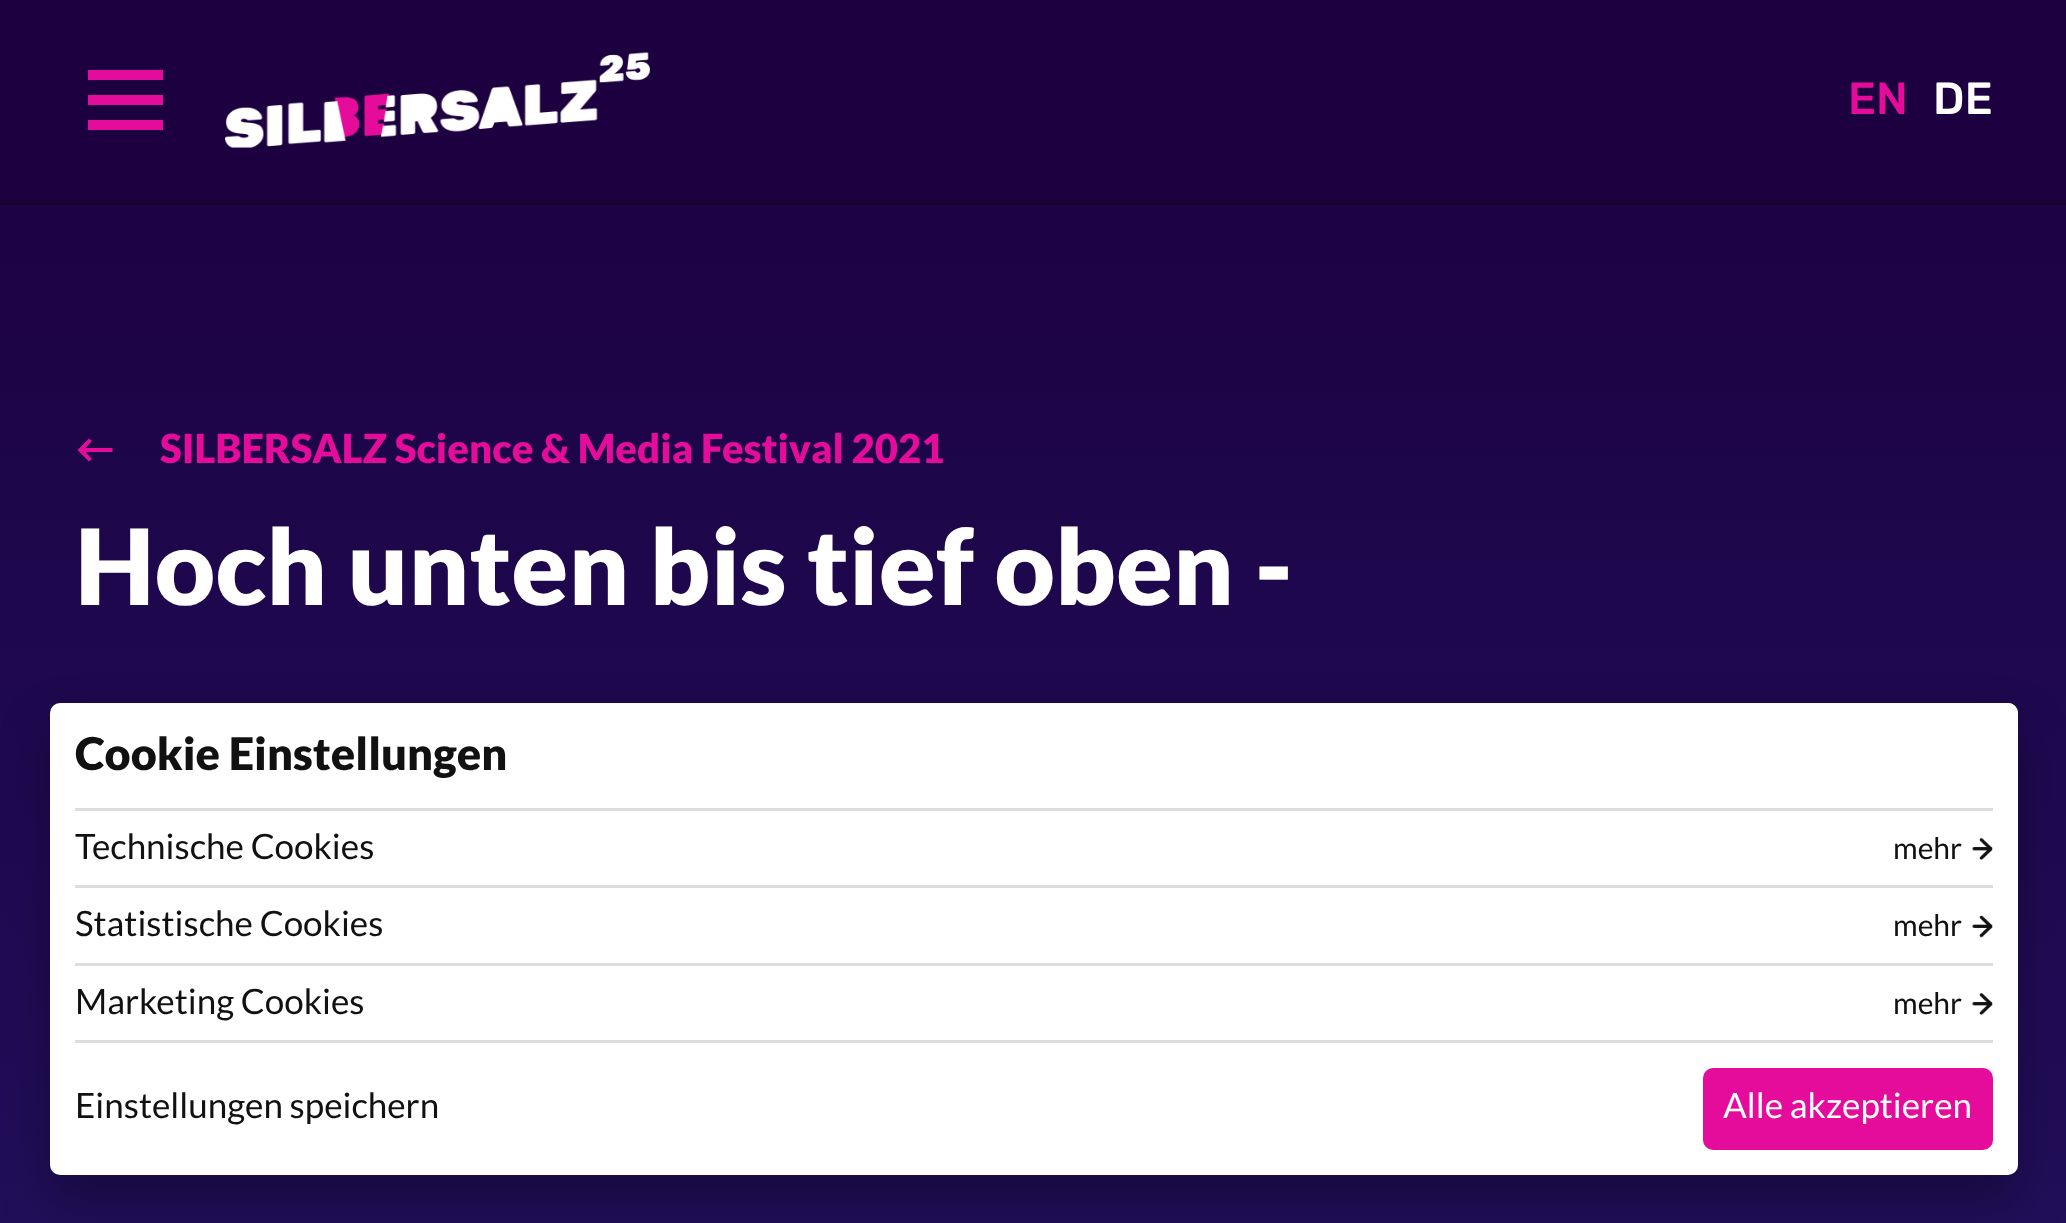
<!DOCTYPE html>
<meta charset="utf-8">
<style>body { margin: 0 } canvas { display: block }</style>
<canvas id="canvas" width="2066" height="1223"></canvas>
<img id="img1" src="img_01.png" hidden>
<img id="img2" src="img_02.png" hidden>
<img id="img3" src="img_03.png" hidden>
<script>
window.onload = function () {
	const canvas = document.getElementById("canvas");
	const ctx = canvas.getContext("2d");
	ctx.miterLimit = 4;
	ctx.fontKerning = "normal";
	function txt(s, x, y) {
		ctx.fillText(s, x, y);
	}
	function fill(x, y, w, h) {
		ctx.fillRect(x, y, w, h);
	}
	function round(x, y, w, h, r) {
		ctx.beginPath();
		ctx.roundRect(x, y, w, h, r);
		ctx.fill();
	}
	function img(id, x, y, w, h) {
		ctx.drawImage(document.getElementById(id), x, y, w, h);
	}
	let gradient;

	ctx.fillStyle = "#FFFFFF";
	fill(0, 0, 2066, 1223);
	gradient = ctx.createLinearGradient(1034, 0, 1034, 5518);
	gradient.addColorStop(0, "#1C0040");
	gradient.addColorStop(0.5, "#27217A");
	gradient.addColorStop(1, "#48269A");
	ctx.fillStyle = gradient;
	fill(0, 205, 2066, 1018);
	ctx.fillStyle = "#1C0040";
	fill(0, 0, 2066, 200);
	ctx.fillStyle = "#E50B9B";
	fill(88, 95, 75, 10);
	fill(88, 70, 75, 10);
	fill(88, 120, 75, 10);
	img("img1", 225, 52, 425, 96);
	ctx.fillStyle = "#170236";
	fill(0, 200, 2066, 5);
	ctx.fillStyle = "#E50B9B";
	ctx.beginPath();
	ctx.moveTo(85.5, 452);
	ctx.lineTo(112.5, 452);
	ctx.lineTo(112.5, 448);
	ctx.lineTo(85.5, 448);
	ctx.lineTo(92, 441);
	ctx.lineTo(89, 438.5);
	ctx.lineTo(77.5, 450);
	ctx.lineTo(89, 461.5);
	ctx.lineTo(92, 459);
	ctx.closePath();
	ctx.fill();
	ctx.fillStyle = "rgba(0, 0, 0, 0.3)";
	ctx.filter = "blur(25px)";
	ctx.beginPath();
	ctx.roundRect(50, 728, 1968, 472, 10);
	ctx.fill();
	ctx.filter = "none";
	ctx.fillStyle = "#FFFFFF";
	round(50, 703, 1968, 472, 10);
	ctx.beginPath();
	ctx.roundRect(750, 703, 1268, 50, [0, 10, 0, 0]);
	ctx.fill();
	ctx.fillStyle = "#DDDDDD";
	fill(75, 808, 1918, 3);
	fill(75, 885, 1918, 3);
	img("img2", 1972, 837, 21, 23);
	fill(75, 963, 1918, 3);
	img("img3", 1972, 915, 21, 23);
	fill(75, 1040, 1918, 3);
	img("img2", 1972, 992, 21, 23);
	ctx.fillStyle = "#E50B9B";
	round(1703, 1068, 290, 82, 10);
	ctx.font = "300 45px Rubik";
	txt("EN", 1848, 114);
	ctx.fillStyle = "#FFFFFF";
	txt("DE", 1933, 114);
	ctx.font = "900 40px Lato";
	ctx.fillStyle = "#E50B9B";
	txt("SILBERSALZ Science & Media Festival 2021", 160, 463);
	ctx.font = "900 105px Lato";
	ctx.fillStyle = "#FFFFFF";
	txt("Hoch unten bis tief oben -", 75, 605);
	ctx.font = "900 45px Lato";
	ctx.fillStyle = "#111111";
	txt("Cookie Einstellungen", 75, 770);
	ctx.font = "35px Lato";
	txt("Technische Cookies", 75, 859);
	ctx.font = "30px Lato";
	txt("mehr", 1893, 859);
	ctx.font = "35px Lato";
	txt("Statistische Cookies", 75, 936);
	ctx.font = "30px Lato";
	txt("mehr", 1893, 936);
	ctx.font = "35px Lato";
	txt("Marketing Cookies", 75, 1014);
	ctx.font = "30px Lato";
	txt("mehr", 1893, 1014);
	ctx.font = "35px Lato";
	txt("Einstellungen speichern", 75, 1118);
	ctx.fillStyle = "#FFFFFF";
	txt("Alle akzeptieren", 1723, 1118);
};
</script>
